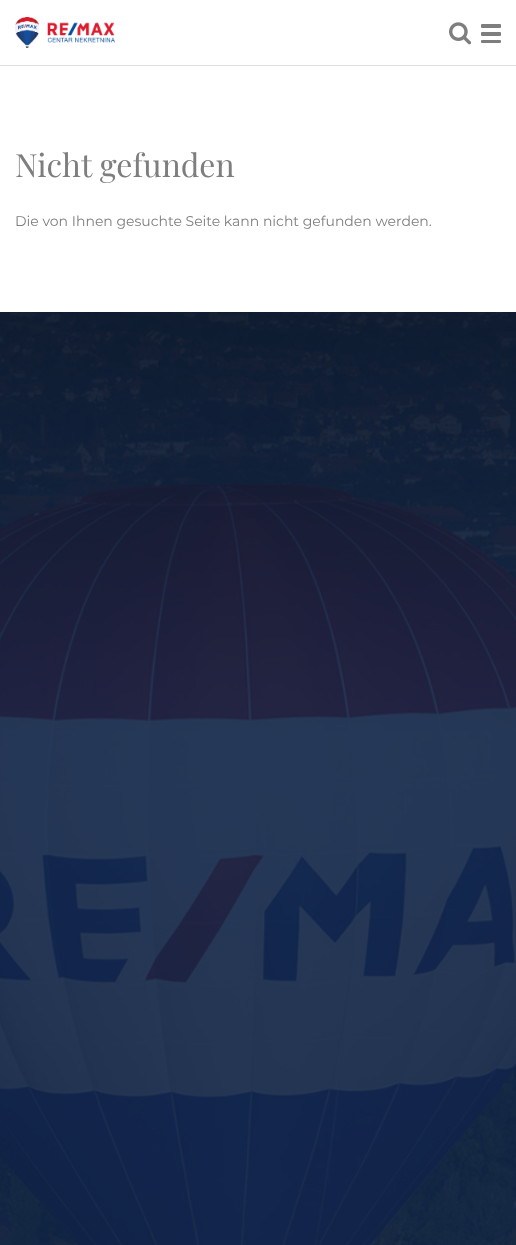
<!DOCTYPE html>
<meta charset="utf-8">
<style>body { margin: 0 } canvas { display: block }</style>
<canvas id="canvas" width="516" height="1245"></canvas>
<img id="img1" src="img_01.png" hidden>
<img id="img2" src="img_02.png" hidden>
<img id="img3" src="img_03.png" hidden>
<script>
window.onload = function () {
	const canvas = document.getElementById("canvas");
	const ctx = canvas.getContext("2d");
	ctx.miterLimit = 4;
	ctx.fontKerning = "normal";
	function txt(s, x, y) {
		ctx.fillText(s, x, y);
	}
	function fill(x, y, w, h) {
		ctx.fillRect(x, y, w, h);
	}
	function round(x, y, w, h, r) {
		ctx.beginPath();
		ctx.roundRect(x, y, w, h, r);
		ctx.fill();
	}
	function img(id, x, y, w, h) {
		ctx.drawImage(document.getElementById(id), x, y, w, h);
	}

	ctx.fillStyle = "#FFFFFF";
	fill(0, 0, 516, 1245);
	ctx.fillStyle = "#DEDEDE";
	fill(0, 65, 516, 1);
	img("img1", 15, 17, 100, 31);
	img("img2", 449, 22, 23, 23);
	ctx.fillStyle = "#7E7E7E";
	round(481, 24, 20, 4, 1);
	round(481, 32, 20, 4, 1);
	round(481, 40, 20, 3, 1);
	img("img3", 0, 312, 516, 933);
	ctx.font = "32px Playfair Display";
	txt("Nicht gefunden", 15, 177);
	ctx.font = "14px Montserrat";
	txt("Die von Ihnen gesuchte Seite kann nicht gefunden werden.", 15, 226);
};
</script>
